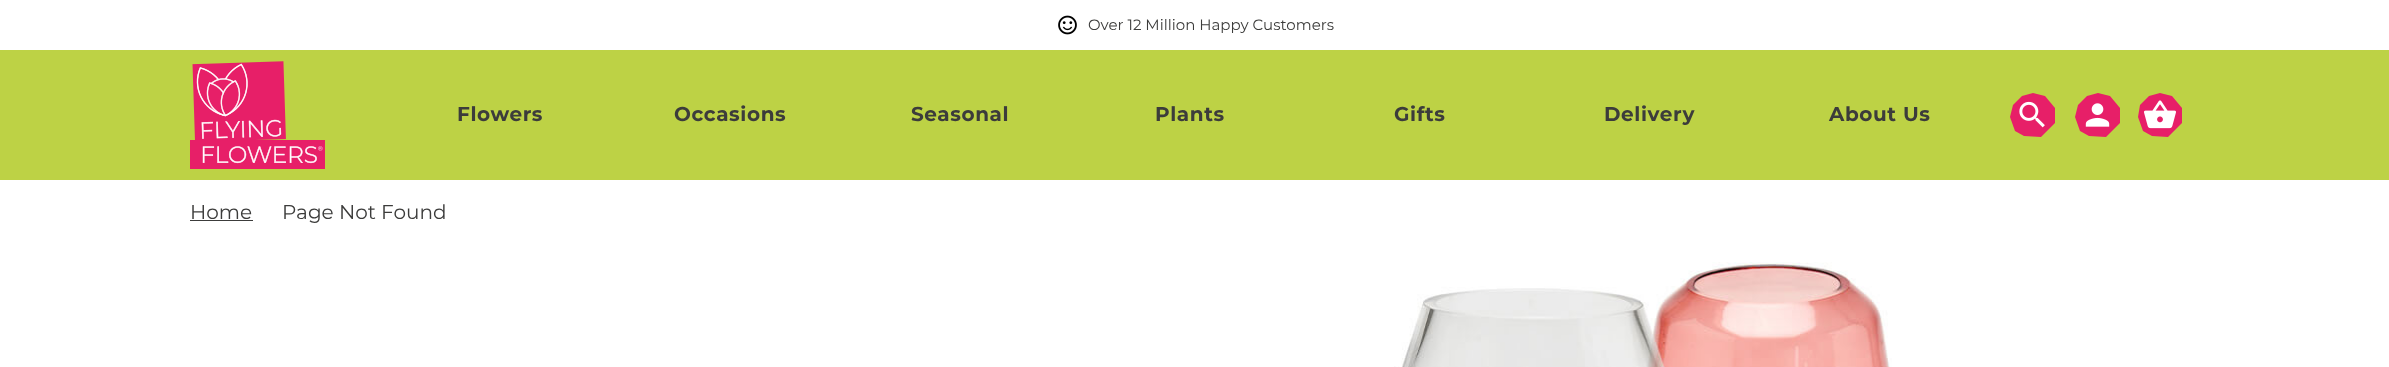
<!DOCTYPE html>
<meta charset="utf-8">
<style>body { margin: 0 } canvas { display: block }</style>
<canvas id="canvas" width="2389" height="367"></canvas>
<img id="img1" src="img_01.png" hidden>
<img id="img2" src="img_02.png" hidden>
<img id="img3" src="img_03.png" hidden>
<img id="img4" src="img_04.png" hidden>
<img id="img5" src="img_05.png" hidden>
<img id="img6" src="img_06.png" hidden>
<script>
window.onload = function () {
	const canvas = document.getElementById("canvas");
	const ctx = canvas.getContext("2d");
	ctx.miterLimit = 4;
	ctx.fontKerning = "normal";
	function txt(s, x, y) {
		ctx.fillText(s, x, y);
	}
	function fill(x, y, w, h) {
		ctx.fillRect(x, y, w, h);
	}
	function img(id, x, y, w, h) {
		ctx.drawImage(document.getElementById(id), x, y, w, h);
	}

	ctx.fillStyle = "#FFFFFF";
	fill(0, 0, 2389, 367);
	img("img1", 1058, 15, 19, 20);
	ctx.fillStyle = "#BDD245";
	fill(0, 50, 2389, 130);
	img("img2", 190, 61, 135, 108);
	ctx.fillStyle = "#E71F68";
	ctx.beginPath();
	ctx.moveTo(2033, 93);
	ctx.lineTo(2022, 96);
	ctx.lineTo(2013, 105);
	ctx.lineTo(2010, 117);
	ctx.lineTo(2015, 131);
	ctx.lineTo(2024, 136);
	ctx.lineTo(2041, 137);
	ctx.lineTo(2055, 123);
	ctx.lineTo(2055, 108);
	ctx.lineTo(2045, 96);
	ctx.closePath();
	ctx.fill();
	img("img3", 2019, 101, 26, 27);
	ctx.beginPath();
	ctx.moveTo(2098, 93);
	ctx.lineTo(2087, 96);
	ctx.lineTo(2078, 105);
	ctx.lineTo(2075, 117);
	ctx.lineTo(2080, 131);
	ctx.lineTo(2089, 136);
	ctx.lineTo(2106, 137);
	ctx.lineTo(2120, 123);
	ctx.lineTo(2120, 108);
	ctx.lineTo(2110, 96);
	ctx.closePath();
	ctx.fill();
	img("img4", 2085, 103, 25, 24);
	ctx.beginPath();
	ctx.moveTo(2160, 93);
	ctx.lineTo(2149, 96);
	ctx.lineTo(2140, 105);
	ctx.lineTo(2138, 117);
	ctx.lineTo(2143, 131);
	ctx.lineTo(2152, 136);
	ctx.lineTo(2168, 137);
	ctx.lineTo(2182, 123);
	ctx.lineTo(2182, 108);
	ctx.lineTo(2172, 96);
	ctx.closePath();
	ctx.fill();
	img("img5", 2144, 100, 32, 29);
	ctx.fillStyle = "#3C3C3B";
	fill(190, 220, 63, 1);
	img("img6", 1394, 262, 498, 105);
	ctx.font = "15px Montserrat";
	txt("Over 12 Million Happy Customers", 1088, 30);
	ctx.letterSpacing = "0.6px";
	ctx.font = "bold 20px Montserrat";
	txt("Flowers", 457, 121);
	txt("Occasions", 674, 121);
	txt("Seasonal", 911, 121);
	txt("Plants", 1155, 121);
	txt("Gifts", 1394, 121);
	txt("Delivery", 1604, 121);
	txt("About Us", 1829, 121);
	ctx.letterSpacing = "0px";
	ctx.font = "20px Montserrat";
	txt("Home", 190, 219);
	txt("Page Not Found", 282, 219);
};
</script>
